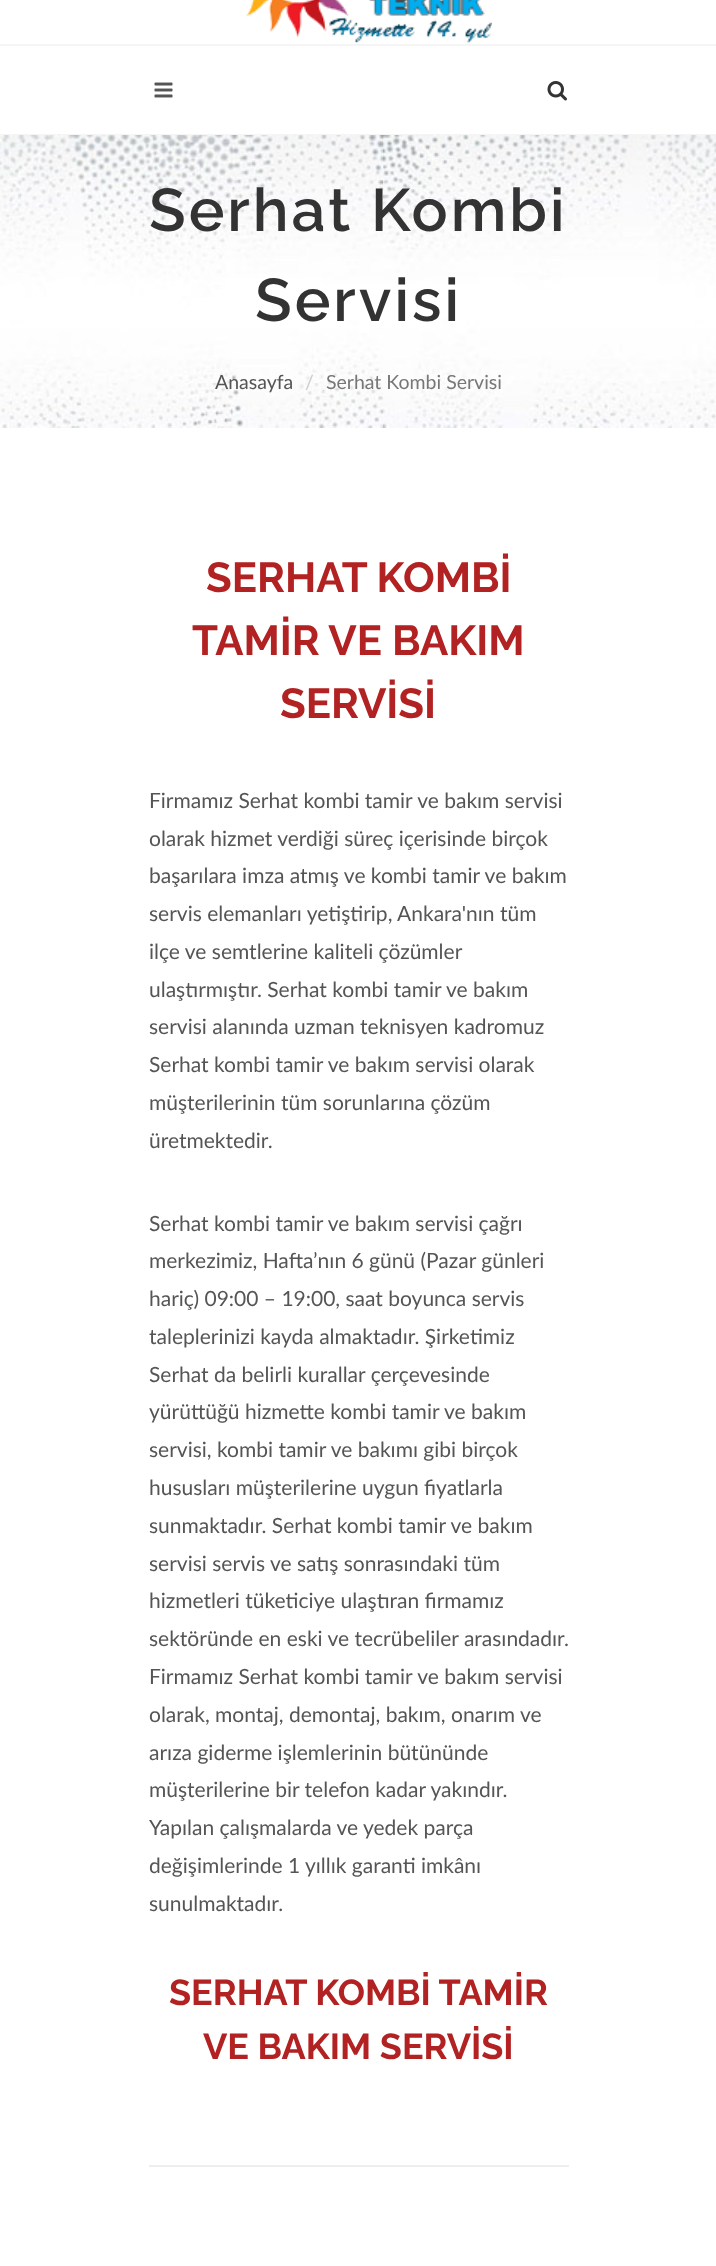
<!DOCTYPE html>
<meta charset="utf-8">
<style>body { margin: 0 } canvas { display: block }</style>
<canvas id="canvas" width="716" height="2266"></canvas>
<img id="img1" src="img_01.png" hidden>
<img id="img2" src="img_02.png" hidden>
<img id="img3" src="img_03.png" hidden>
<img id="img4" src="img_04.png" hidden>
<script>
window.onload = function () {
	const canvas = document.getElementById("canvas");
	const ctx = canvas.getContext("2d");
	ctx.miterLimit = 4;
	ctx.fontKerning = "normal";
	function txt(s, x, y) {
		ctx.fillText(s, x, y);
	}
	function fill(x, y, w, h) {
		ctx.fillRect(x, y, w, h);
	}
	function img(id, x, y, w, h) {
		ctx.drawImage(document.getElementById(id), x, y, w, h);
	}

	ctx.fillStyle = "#FFFFFF";
	fill(0, 0, 716, 2266);
	ctx.fillStyle = "#F5F5F5";
	fill(0, 134, 716, 1);
	img("img1", 245, 0, 247, 44);
	fill(0, 44, 716, 2);
	img("img2", 154, 82, 19, 16);
	img("img3", 547, 81, 20, 20);
	img("img4", 0, 135, 716, 293);
	ctx.fillStyle = "#EEEEEE";
	fill(149, 2165, 420, 2);
	ctx.letterSpacing = "3px";
	ctx.font = "600 60px Raleway";
	ctx.fillStyle = "#333333";
	txt("Serhat Kombi", 149, 231);
	txt("Servisi", 255, 321);
	ctx.letterSpacing = "0px";
	ctx.font = "19.5px Lato";
	ctx.fillStyle = "#555555";
	txt("Anasayfa", 215, 389);
	ctx.fillStyle = "#CCCCCC";
	txt("/", 305, 389);
	ctx.fillStyle = "#777777";
	txt("Serhat Kombi Servisi", 326, 389);
	ctx.font = "bold 42px Raleway";
	ctx.fillStyle = "#B22222";
	txt("SERHAT KOMBİ", 206, 592);
	txt("TAMİR VE BAKIM", 192, 655);
	txt("SERVİSİ", 280, 718);
	ctx.font = "21px Lato";
	ctx.fillStyle = "#555555";
	txt("Firmamız Serhat kombi tamir ve bakım servisi", 149, 808);
	txt("olarak hizmet verdiği süreç içerisinde birçok", 149, 846);
	txt("başarılara imza atmış ve kombi tamir ve bakım", 149, 883);
	txt("servis elemanları yetiştirip, Ankara'nın tüm", 149, 921);
	txt("ilçe ve semtlerine kaliteli çözümler", 149, 959);
	txt("ulaştırmıştır. Serhat kombi tamir ve bakım", 149, 997);
	txt("servisi alanında uzman teknisyen kadromuz", 149, 1034);
	txt("Serhat kombi tamir ve bakım servisi olarak", 149, 1072);
	txt("müşterilerinin tüm sorunlarına çözüm", 149, 1110);
	txt("üretmektedir.", 149, 1148);
	txt("Serhat kombi tamir ve bakım servisi çağrı", 149, 1231);
	txt("merkezimiz, Hafta’nın 6 günü (Pazar günleri", 149, 1268);
	txt("hariç) 09:00 – 19:00, saat boyunca servis", 149, 1306);
	txt("taleplerinizi kayda almaktadır. Şirketimiz", 149, 1344);
	txt("Serhat da belirli kurallar çerçevesinde", 149, 1382);
	txt("yürüttüğü hizmette kombi tamir ve bakım", 149, 1419);
	txt("servisi, kombi tamir ve bakımı gibi birçok", 149, 1457);
	txt("hususları müşterilerine uygun fiyatlarla", 149, 1495);
	txt("sunmaktadır. Serhat kombi tamir ve bakım", 149, 1533);
	txt("servisi servis ve satış sonrasındaki tüm", 149, 1571);
	txt("hizmetleri tüketiciye ulaştıran firmamız", 149, 1608);
	txt("sektöründe en eski ve tecrübeliler arasındadır.", 149, 1646);
	txt("Firmamız Serhat kombi tamir ve bakım servisi", 149, 1684);
	txt("olarak, montaj, demontaj, bakım, onarım ve", 149, 1722);
	txt("arıza giderme işlemlerinin bütününde", 149, 1760);
	txt("müşterilerine bir telefon kadar yakındır.", 149, 1797);
	txt("Yapılan çalışmalarda ve yedek parça", 149, 1835);
	txt("değişimlerinde 1 yıllık garanti imkânı", 149, 1873);
	txt("sunulmaktadır.", 149, 1911);
	ctx.font = "bold 36px Raleway";
	ctx.fillStyle = "#B22222";
	txt("SERHAT KOMBİ TAMİR", 169, 2005);
	txt("VE BAKIM SERVİSİ", 203, 2059);
};
</script>
